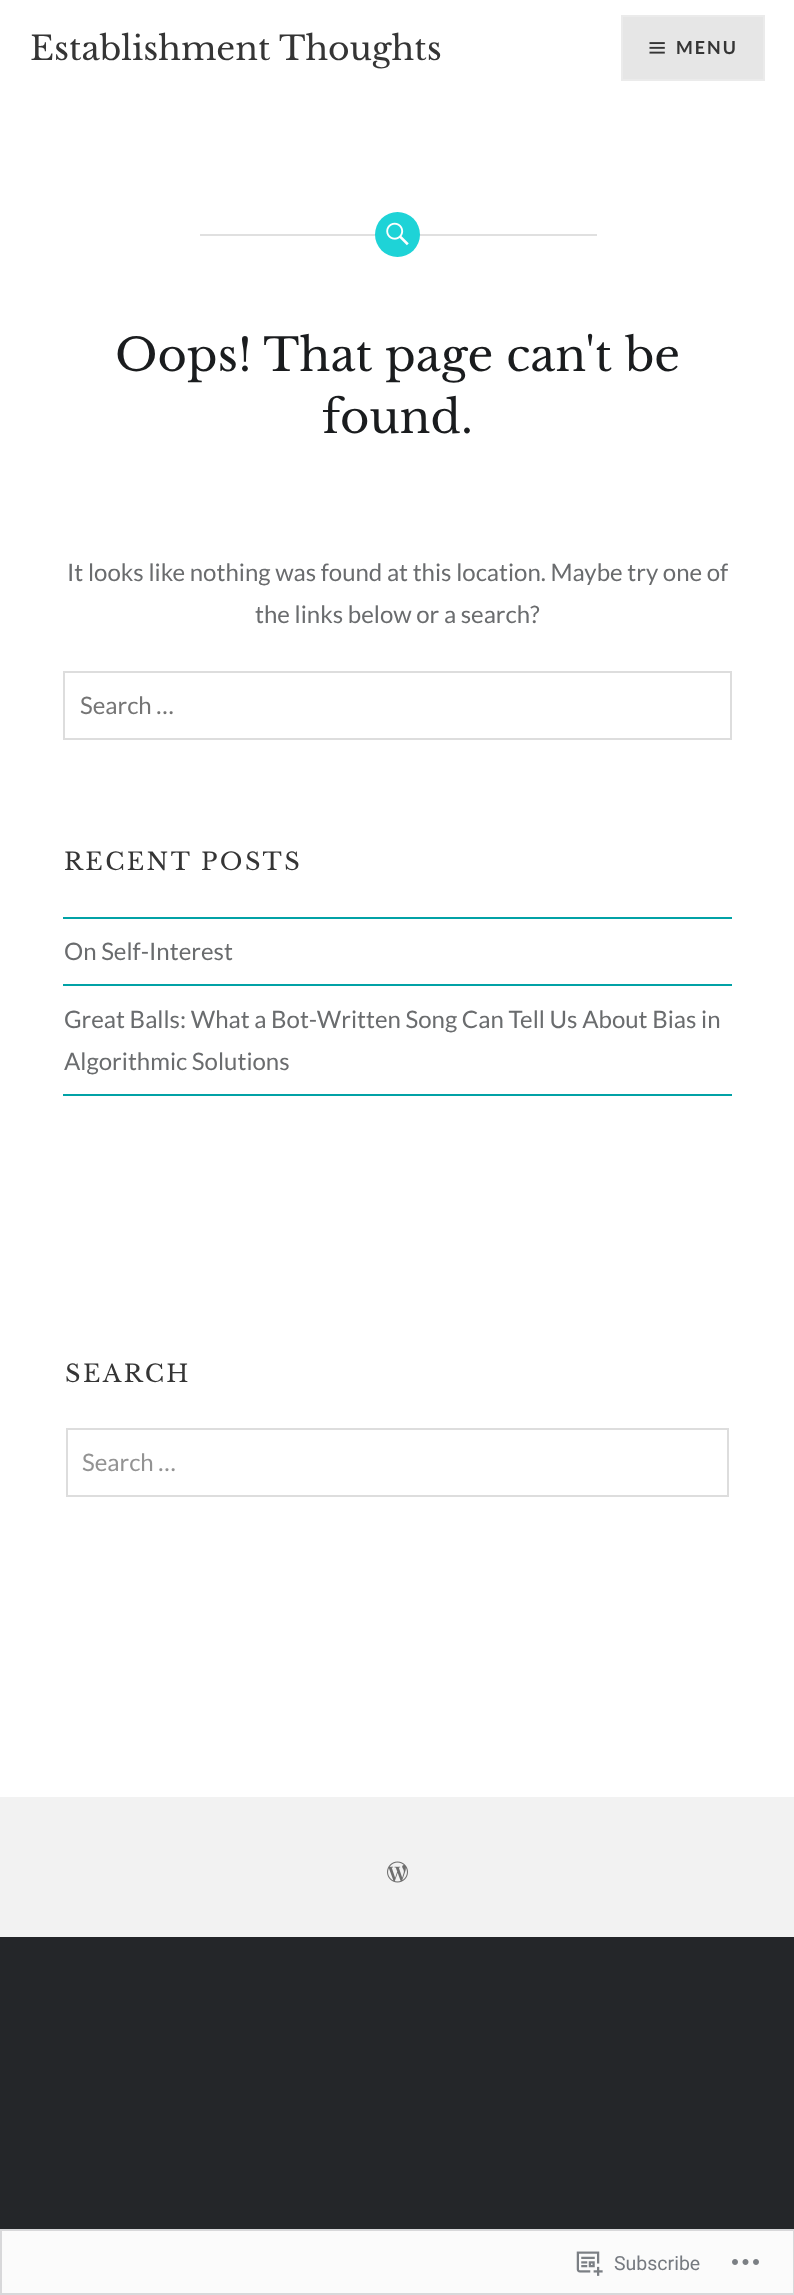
<!DOCTYPE html>
<meta charset="utf-8">
<style>body { margin: 0 } canvas { display: block }</style>
<canvas id="canvas" width="794" height="2295"></canvas>
<img id="img1" src="img_01.png" hidden>
<img id="img2" src="img_02.png" hidden>
<img id="img3" src="img_03.png" hidden>
<img id="img4" src="img_04.png" hidden>
<img id="img5" src="img_05.png" hidden>
<script>
window.onload = function () {
	const canvas = document.getElementById("canvas");
	const ctx = canvas.getContext("2d");
	ctx.miterLimit = 4;
	ctx.fontKerning = "normal";
	function txt(s, x, y) {
		ctx.fillText(s, x, y);
	}
	function fill(x, y, w, h) {
		ctx.fillRect(x, y, w, h);
	}
	function img(id, x, y, w, h) {
		ctx.drawImage(document.getElementById(id), x, y, w, h);
	}

	ctx.fillStyle = "#242629";
	fill(0, 0, 794, 2295);
	ctx.fillStyle = "#FFFFFF";
	fill(0, 0, 794, 1797);
	ctx.fillStyle = "#E6E6E6";
	ctx.beginPath();
	ctx.rect(622, 16, 142, 64);
	ctx.fill();
	ctx.strokeStyle = "#EBEBEB";
	ctx.lineWidth = 2;
	ctx.stroke();
	img("img1", 649, 42, 16, 12);
	ctx.fillStyle = "#E0E0E0";
	fill(200, 234, 397, 2);
	ctx.fillStyle = "#1ED3D7";
	ctx.beginPath();
	ctx.arc(397.5, 234.5, 22.5, 0, Math.PI * 2);
	ctx.fill();
	img("img2", 386, 222, 23, 24);
	ctx.strokeStyle = "#DDDDDD";
	ctx.strokeRect(64, 672, 667, 67);
	ctx.fillStyle = "#01A2A6";
	fill(63, 917, 669, 2);
	fill(63, 984, 669, 2);
	fill(63, 1094, 669, 2);
	ctx.strokeRect(67, 1429, 661, 67);
	ctx.fillStyle = "#F2F2F2";
	fill(0, 1797, 794, 140);
	img("img3", 387, 1861, 21, 22);
	ctx.fillStyle = "#FBFBFB";
	ctx.beginPath();
	ctx.rect(1, 2230, 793, 64);
	ctx.fill();
	ctx.strokeStyle = "#D8D8DA";
	ctx.stroke();
	img("img4", 576, 2251, 27, 25);
	img("img5", 732, 2259, 27, 6);
	ctx.font = "33px Libre Baskerville";
	ctx.fillStyle = "#353535";
	txt("Establishment Thoughts", 30, 60);
	ctx.letterSpacing = "2px";
	ctx.font = "bold 18px Lato";
	txt("MENU", 676, 54);
	ctx.letterSpacing = "0px";
	ctx.font = "45px Libre Baskerville";
	ctx.fillStyle = "#1A1C1E";
	txt("Oops! That page can't be", 115, 371);
	txt("found.", 322, 433);
	ctx.font = "24px Lato";
	ctx.fillStyle = "#6A6C6E";
	txt("It looks like nothing was found at this location. Maybe try one of", 67, 581);
	txt("the links below or a search?", 255, 623);
	ctx.fillStyle = "#757575";
	txt("Search …", 80, 714);
	ctx.letterSpacing = "2.4px";
	ctx.font = "24px Libre Baskerville";
	ctx.fillStyle = "#353535";
	txt("RECENT POSTS", 64, 870);
	ctx.letterSpacing = "0px";
	ctx.font = "24px Lato";
	ctx.fillStyle = "#6A6C6E";
	txt("On Self-Interest", 64, 960);
	txt("Great Balls: What a Bot-Written Song Can Tell Us About Bias in", 64, 1028);
	txt("Algorithmic Solutions", 64, 1070);
	ctx.letterSpacing = "2.4px";
	ctx.font = "24px Libre Baskerville";
	ctx.fillStyle = "#353535";
	txt("SEARCH", 65, 1382);
	ctx.letterSpacing = "0px";
	ctx.font = "24px Lato";
	ctx.fillStyle = "#939393";
	txt("Search …", 82, 1471);
	ctx.font = "19.5px Roboto";
	ctx.fillStyle = "#767A80";
	txt("Subscribe", 614, 2270);
};
</script>
